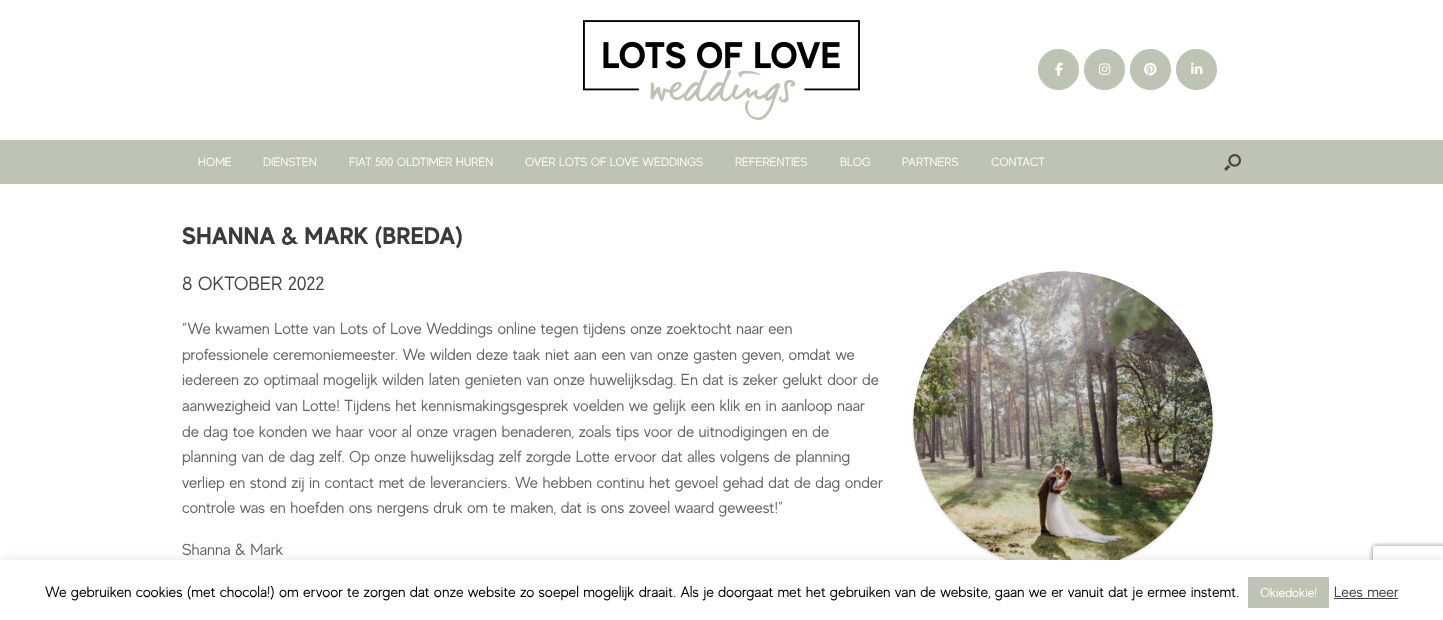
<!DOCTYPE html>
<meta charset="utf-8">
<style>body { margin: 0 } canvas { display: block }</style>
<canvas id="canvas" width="1443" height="620"></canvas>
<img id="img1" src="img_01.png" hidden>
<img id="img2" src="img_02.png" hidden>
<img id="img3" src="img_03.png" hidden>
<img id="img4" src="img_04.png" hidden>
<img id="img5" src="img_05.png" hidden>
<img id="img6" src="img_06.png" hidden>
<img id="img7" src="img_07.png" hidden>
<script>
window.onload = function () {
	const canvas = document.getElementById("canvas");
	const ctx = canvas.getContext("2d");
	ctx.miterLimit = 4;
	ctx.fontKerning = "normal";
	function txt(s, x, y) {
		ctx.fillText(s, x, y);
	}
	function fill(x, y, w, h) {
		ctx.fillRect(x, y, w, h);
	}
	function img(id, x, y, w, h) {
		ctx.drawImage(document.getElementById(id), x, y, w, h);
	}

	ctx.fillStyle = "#FFFFFF";
	fill(0, 0, 1443, 620);
	img("img1", 583, 20, 277, 100);
	ctx.fillStyle = "#BDC4B4";
	ctx.beginPath();
	ctx.roundRect(1038.5, 49.5, 40, 40, 19.5);
	ctx.fill();
	ctx.strokeStyle = "#BDC4B4";
	ctx.stroke();
	img("img2", 1055, 62, 8, 14);
	ctx.beginPath();
	ctx.roundRect(1084.5, 49.5, 40, 40, 19.5);
	ctx.fill();
	ctx.stroke();
	img("img3", 1099, 63, 12, 12);
	ctx.beginPath();
	ctx.roundRect(1130.5, 49.5, 40, 40, 19.5);
	ctx.fill();
	ctx.stroke();
	img("img4", 1144, 62, 13, 14);
	ctx.beginPath();
	ctx.roundRect(1176.5, 49.5, 40, 40, 19.5);
	ctx.fill();
	ctx.stroke();
	img("img5", 1191, 62, 12, 12);
	fill(0, 140, 1443, 44);
	img("img6", 1224, 154, 17, 17);
	ctx.save();
	ctx.beginPath();
	ctx.moveTo(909, 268);
	ctx.lineTo(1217, 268);
	ctx.lineTo(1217, 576);
	ctx.lineTo(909, 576);
	ctx.closePath();
	ctx.moveTo(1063, 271);
	ctx.bezierCurveTo(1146, 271, 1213, 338, 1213, 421);
	ctx.bezierCurveTo(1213, 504, 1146, 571, 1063, 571);
	ctx.bezierCurveTo(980, 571, 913, 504, 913, 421);
	ctx.bezierCurveTo(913, 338, 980, 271, 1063, 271);
	ctx.closePath();
	ctx.clip("evenodd");
	ctx.fillStyle = "rgba(0, 0, 0, 0.18)";
	ctx.filter = "blur(1px)";
	ctx.beginPath();
	ctx.roundRect(913, 272, 300, 300, 150);
	ctx.fill();
	ctx.filter = "none";
	ctx.restore();
	img("img7", 913, 271, 300, 289);
	ctx.fillStyle = "rgba(172, 171, 171, 0.3)";
	ctx.filter = "blur(5px)";
	ctx.beginPath();
	ctx.rect(0, 559, 1443, 60);
	ctx.fill();
	ctx.filter = "none";
	ctx.save();
	ctx.beginPath();
	ctx.moveTo(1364, 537);
	ctx.lineTo(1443, 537);
	ctx.lineTo(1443, 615);
	ctx.lineTo(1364, 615);
	ctx.closePath();
	ctx.moveTo(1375, 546);
	ctx.lineTo(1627, 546);
	ctx.bezierCurveTo(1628, 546, 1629, 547, 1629, 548);
	ctx.lineTo(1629, 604);
	ctx.bezierCurveTo(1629, 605, 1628, 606, 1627, 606);
	ctx.lineTo(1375, 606);
	ctx.bezierCurveTo(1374, 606, 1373, 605, 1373, 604);
	ctx.lineTo(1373, 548);
	ctx.bezierCurveTo(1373, 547, 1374, 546, 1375, 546);
	ctx.closePath();
	ctx.clip("evenodd");
	ctx.fillStyle = "#808080";
	ctx.filter = "blur(2.5px)";
	ctx.beginPath();
	ctx.roundRect(1373, 546, 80, 60, 2);
	ctx.fill();
	ctx.filter = "none";
	ctx.restore();
	ctx.fillStyle = "#FFFFFF";
	fill(0, 560, 1443, 60);
	ctx.fillStyle = "#BDC4B4";
	fill(1248, 577, 81, 31);
	ctx.fillStyle = "#444444";
	fill(1334, 598, 64, 1);
	ctx.font = "12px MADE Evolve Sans";
	ctx.fillStyle = "#FFFFFF";
	txt("HOME", 198, 166);
	txt("DIENSTEN", 263, 166);
	txt("FIAT 500 OLDTIMER HUREN", 349, 166);
	txt("OVER LOTS OF LOVE WEDDINGS", 525, 166);
	txt("REFERENTIES", 735, 166);
	txt("BLOG", 840, 166);
	txt("PARTNERS", 902, 166);
	txt("CONTACT", 991, 166);
	ctx.font = "bold 24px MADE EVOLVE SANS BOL";
	ctx.fillStyle = "#3B3B3B";
	txt("SHANNA & MARK (BREDA)", 182, 244);
	ctx.font = "19.25px MADE Evolve Sans";
	ctx.fillStyle = "#444444";
	txt("8 OKTOBER 2022", 182, 290);
	ctx.font = "16px MADE Evolve Sans";
	ctx.fillStyle = "#666666";
	txt("“We kwamen Lotte van Lots of Love Weddings online tegen tijdens onze zoektocht naar een", 182, 334);
	txt("professionele ceremoniemeester. We wilden deze taak niet aan een van onze gasten geven, omdat we", 182, 360);
	txt("iedereen zo optimaal mogelijk wilden laten genieten van onze huwelijksdag. En dat is zeker gelukt door de", 182, 385);
	txt("aanwezigheid van Lotte! Tijdens het kennismakingsgesprek voelden we gelijk een klik en in aanloop naar", 182, 411);
	txt("de dag toe konden we haar voor al onze vragen benaderen, zoals tips voor de uitnodigingen en de", 182, 437);
	txt("planning van de dag zelf. Op onze huwelijksdag zelf zorgde Lotte ervoor dat alles volgens de planning", 182, 462);
	txt("verliep en stond zij in contact met de leveranciers. We hebben continu het gevoel gehad dat de dag onder", 182, 488);
	txt("controle was en hoefden ons nergens druk om te maken, dat is ons zoveel waard geweest!”", 182, 513);
	txt("Shanna & Mark", 182, 555);
	ctx.font = "15px MADE Evolve Sans";
	ctx.fillStyle = "#000000";
	txt("We gebruiken cookies (met chocola!) om ervoor te zorgen dat onze website zo soepel mogelijk draait. Als je doorgaat met het gebruiken van de website, gaan we er vanuit dat je ermee instemt.", 45, 597);
	ctx.font = "13px MADE Evolve Sans";
	ctx.fillStyle = "#FFFFFF";
	txt("Okiedokie!", 1260, 597);
	ctx.font = "15px MADE Evolve Sans";
	ctx.fillStyle = "#444444";
	txt("Lees meer", 1334, 597);
};
</script>
